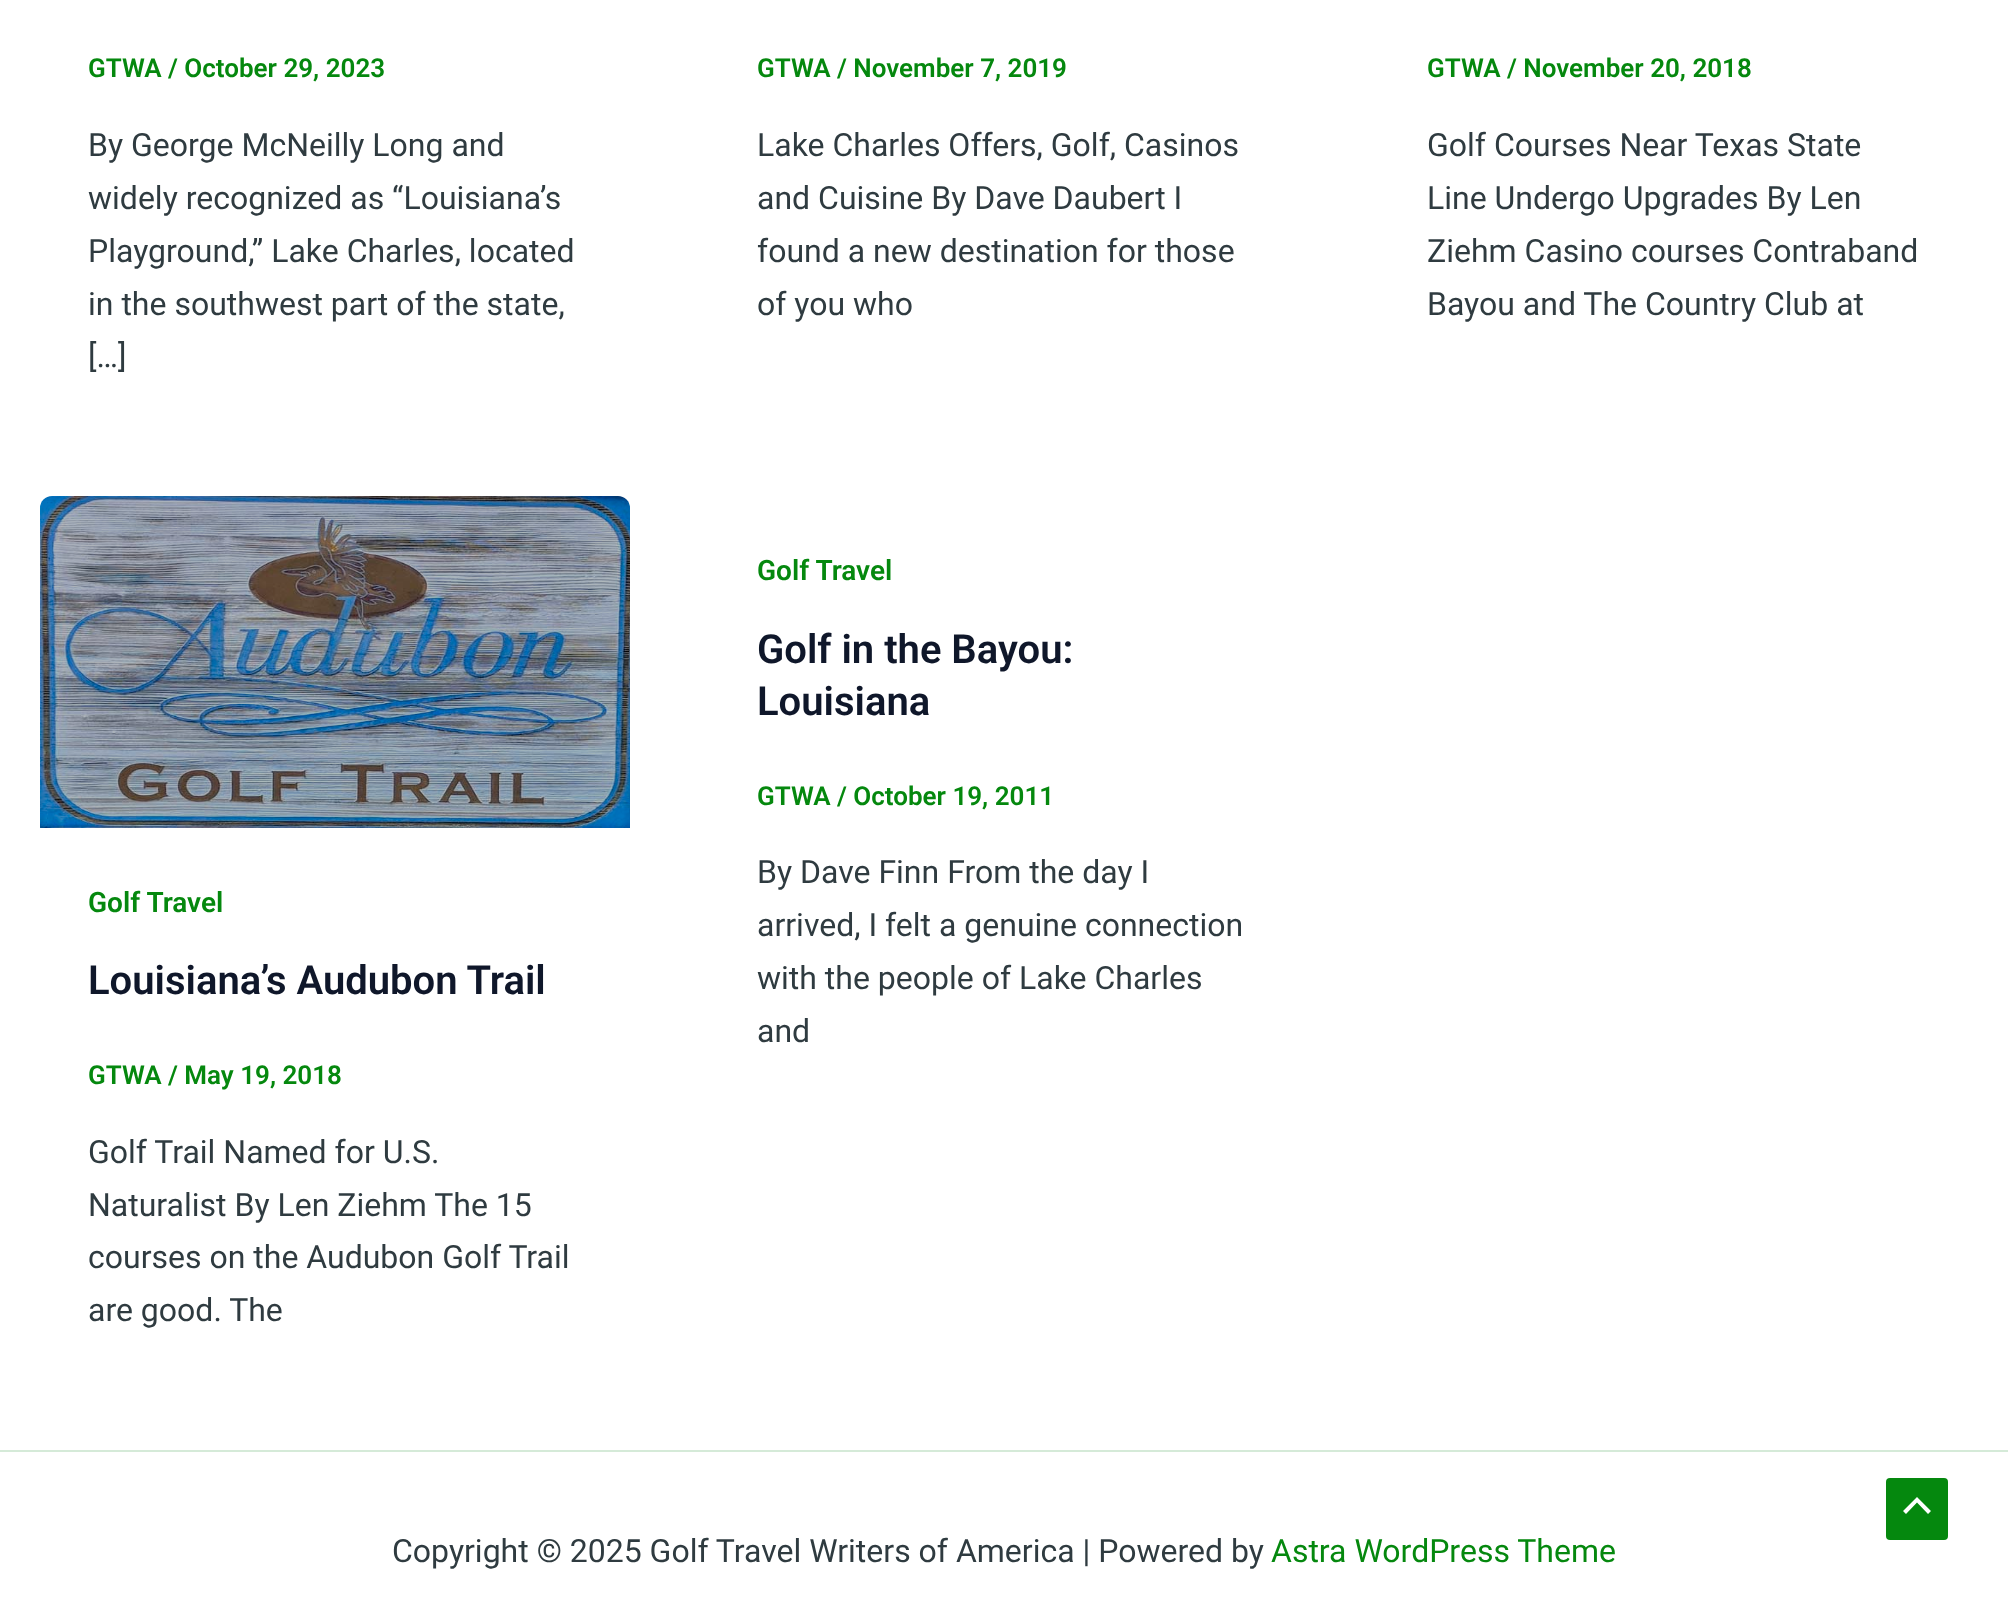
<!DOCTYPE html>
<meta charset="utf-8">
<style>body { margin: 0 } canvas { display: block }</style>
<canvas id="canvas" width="2008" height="1600"></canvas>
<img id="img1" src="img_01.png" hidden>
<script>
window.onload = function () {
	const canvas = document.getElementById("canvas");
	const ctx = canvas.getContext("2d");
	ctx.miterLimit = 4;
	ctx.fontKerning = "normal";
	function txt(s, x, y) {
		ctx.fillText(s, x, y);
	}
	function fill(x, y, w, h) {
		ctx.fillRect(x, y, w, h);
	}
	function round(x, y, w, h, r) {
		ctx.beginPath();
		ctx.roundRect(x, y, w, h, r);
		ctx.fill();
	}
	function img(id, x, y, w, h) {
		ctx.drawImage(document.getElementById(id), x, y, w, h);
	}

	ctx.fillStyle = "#FFFFFF";
	fill(0, 0, 2008, 1600);
	img("img1", 40, 496, 590, 332);
	ctx.fillStyle = "#D5EAD8";
	fill(0, 1450, 2008, 2);
	ctx.fillStyle = "#05880E";
	round(1886, 1478, 62, 62, 4);
	ctx.fillStyle = "#FFFFFF";
	ctx.beginPath();
	ctx.moveTo(1931, 1511);
	ctx.lineTo(1917, 1497);
	ctx.lineTo(1903, 1511);
	ctx.lineTo(1906, 1514);
	ctx.lineTo(1917, 1502.5);
	ctx.lineTo(1928, 1514);
	ctx.closePath();
	ctx.fill();
	ctx.font = "600 26px Roboto";
	ctx.fillStyle = "#05880E";
	txt("GTWA / October 29, 2023", 88, 77);
	ctx.font = "32px Roboto";
	ctx.fillStyle = "#2F3B40";
	txt("By George McNeilly Long and", 88, 156);
	txt("widely recognized as “Louisiana’s", 88, 209);
	txt("Playground,” Lake Charles, located", 88, 262);
	txt("in the southwest part of the state,", 88, 315);
	txt("[…]", 88, 367);
	ctx.font = "600 26px Roboto";
	ctx.fillStyle = "#05880E";
	txt("GTWA / November 7, 2019", 757, 77);
	ctx.font = "32px Roboto";
	ctx.fillStyle = "#2F3B40";
	txt("Lake Charles Offers, Golf, Casinos", 757, 156);
	txt("and Cuisine By Dave Daubert I", 757, 209);
	txt("found a new destination for those", 757, 262);
	txt("of you who", 757, 315);
	ctx.font = "600 26px Roboto";
	ctx.fillStyle = "#05880E";
	txt("GTWA / November 20, 2018", 1427, 77);
	ctx.font = "32px Roboto";
	ctx.fillStyle = "#2F3B40";
	txt("Golf Courses Near Texas State", 1427, 156);
	txt("Line Undergo Upgrades By Len", 1427, 209);
	txt("Ziehm Casino courses Contraband", 1427, 262);
	txt("Bayou and The Country Club at", 1427, 315);
	ctx.font = "600 28px Roboto";
	ctx.fillStyle = "#05880E";
	txt("Golf Travel", 757, 580);
	ctx.font = "600 40px Roboto";
	ctx.fillStyle = "#0F172A";
	txt("Golf in the Bayou:", 757, 663);
	txt("Louisiana", 757, 715);
	ctx.font = "600 26px Roboto";
	ctx.fillStyle = "#05880E";
	txt("GTWA / October 19, 2011", 757, 805);
	ctx.font = "32px Roboto";
	ctx.fillStyle = "#2F3B40";
	txt("By Dave Finn From the day I", 757, 883);
	txt("arrived, I felt a genuine connection", 757, 936);
	txt("with the people of Lake Charles", 757, 989);
	txt("and", 757, 1042);
	ctx.font = "600 28px Roboto";
	ctx.fillStyle = "#05880E";
	txt("Golf Travel", 88, 912);
	ctx.font = "600 40px Roboto";
	ctx.fillStyle = "#0F172A";
	txt("Louisiana’s Audubon Trail", 88, 994);
	ctx.font = "600 26px Roboto";
	ctx.fillStyle = "#05880E";
	txt("GTWA / May 19, 2018", 88, 1084);
	ctx.font = "32px Roboto";
	ctx.fillStyle = "#2F3B40";
	txt("Golf Trail Named for U.S.", 88, 1163);
	txt("Naturalist By Len Ziehm The 15", 88, 1216);
	txt("courses on the Audubon Golf Trail", 88, 1268);
	txt("are good. The", 88, 1321);
	txt("Copyright © 2025 Golf Travel Writers of America | Powered by", 392, 1562);
	ctx.fillStyle = "#05880E";
	txt("Astra WordPress Theme", 1271, 1562);
};
</script>
